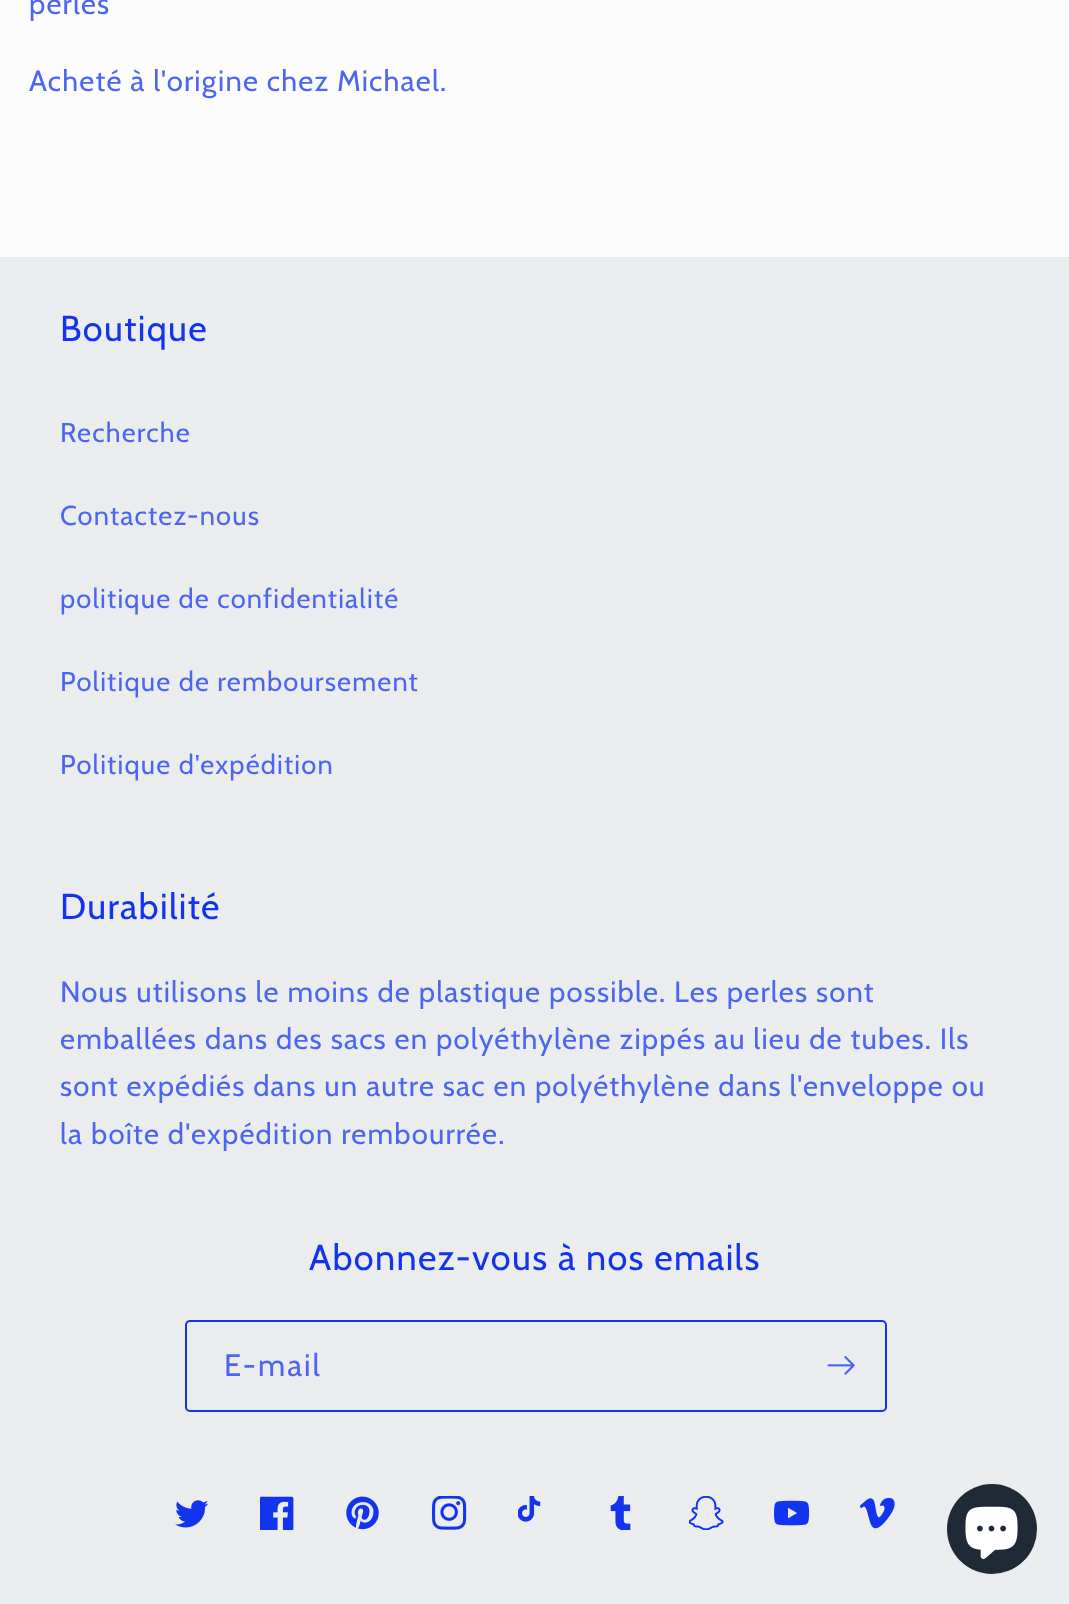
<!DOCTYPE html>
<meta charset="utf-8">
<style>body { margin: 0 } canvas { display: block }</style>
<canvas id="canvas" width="1069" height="1604"></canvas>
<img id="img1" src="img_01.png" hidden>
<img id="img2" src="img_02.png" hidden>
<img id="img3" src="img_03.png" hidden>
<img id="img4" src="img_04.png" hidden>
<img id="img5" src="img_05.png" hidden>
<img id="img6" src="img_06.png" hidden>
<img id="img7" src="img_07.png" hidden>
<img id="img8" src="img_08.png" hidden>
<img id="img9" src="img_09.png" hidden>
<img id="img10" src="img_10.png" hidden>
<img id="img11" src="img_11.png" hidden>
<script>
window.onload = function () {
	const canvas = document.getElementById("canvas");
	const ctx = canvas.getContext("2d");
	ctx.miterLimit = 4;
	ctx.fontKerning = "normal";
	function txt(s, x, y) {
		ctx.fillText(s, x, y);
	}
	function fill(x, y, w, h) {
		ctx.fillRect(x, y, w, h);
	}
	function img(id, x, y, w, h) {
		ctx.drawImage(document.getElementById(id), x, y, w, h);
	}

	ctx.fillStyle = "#FCFCFC";
	fill(0, 0, 1069, 1604);
	ctx.fillStyle = "#EBECED";
	fill(0, 257, 1069, 1347);
	ctx.beginPath();
	ctx.roundRect(186, 1321, 700, 90, 4);
	ctx.strokeStyle = "#1334EF";
	ctx.lineWidth = 2;
	ctx.stroke();
	img("img1", 827, 1356, 28, 19);
	img("img2", 175, 1500, 34, 28);
	img("img3", 260, 1496, 34, 34);
	img("img4", 346, 1496, 33, 34);
	img("img5", 432, 1496, 35, 34);
	img("img6", 518, 1496, 23, 26);
	img("img7", 610, 1496, 21, 34);
	img("img8", 689, 1496, 35, 34);
	img("img9", 774, 1500, 36, 26);
	img("img10", 860, 1497, 35, 32);
	ctx.fillStyle = "#202A36";
	ctx.beginPath();
	ctx.arc(992, 1529, 45, 0, Math.PI * 2);
	ctx.fill();
	img("img11", 965, 1506, 53, 53);
	ctx.letterSpacing = "1.17px";
	ctx.font = "29.25px Cabin";
	ctx.fillStyle = "#4D66F2";
	txt("perles", 29, 14);
	txt("Acheté à l'origine chez Michael.", 29, 91);
	ctx.letterSpacing = "1.35px";
	ctx.font = "36px Cabin";
	ctx.fillStyle = "#1334EF";
	txt("Boutique", 60, 341);
	ctx.letterSpacing = "1.17px";
	ctx.font = "27.25px Cabin";
	ctx.fillStyle = "#4D66F2";
	txt("Recherche", 60, 442);
	txt("Contactez-nous", 60, 525);
	txt("politique de confidentialité", 60, 608);
	txt("Politique de remboursement", 60, 691);
	txt("Politique d'expédition", 60, 774);
	ctx.letterSpacing = "1.35px";
	ctx.font = "36px Cabin";
	ctx.fillStyle = "#1334EF";
	txt("Durabilité", 60, 919);
	ctx.letterSpacing = "1.17px";
	ctx.font = "29.25px Cabin";
	ctx.fillStyle = "#4D66F2";
	txt("Nous utilisons le moins de plastique possible. Les perles sont", 60, 1002);
	txt("emballées dans des sacs en polyéthylène zippés au lieu de tubes. Ils", 60, 1049);
	txt("sont expédiés dans un autre sac en polyéthylène dans l'enveloppe ou", 60, 1096);
	txt("la boîte d'expédition rembourrée.", 60, 1144);
	ctx.letterSpacing = "1.35px";
	ctx.font = "36px Cabin";
	ctx.fillStyle = "#1334EF";
	txt("Abonnez-vous à nos emails", 309, 1270);
	ctx.letterSpacing = "2px";
	ctx.font = "31px Cabin";
	ctx.fillStyle = "#4D66F2";
	txt("E-mail", 224, 1376);
};
</script>
